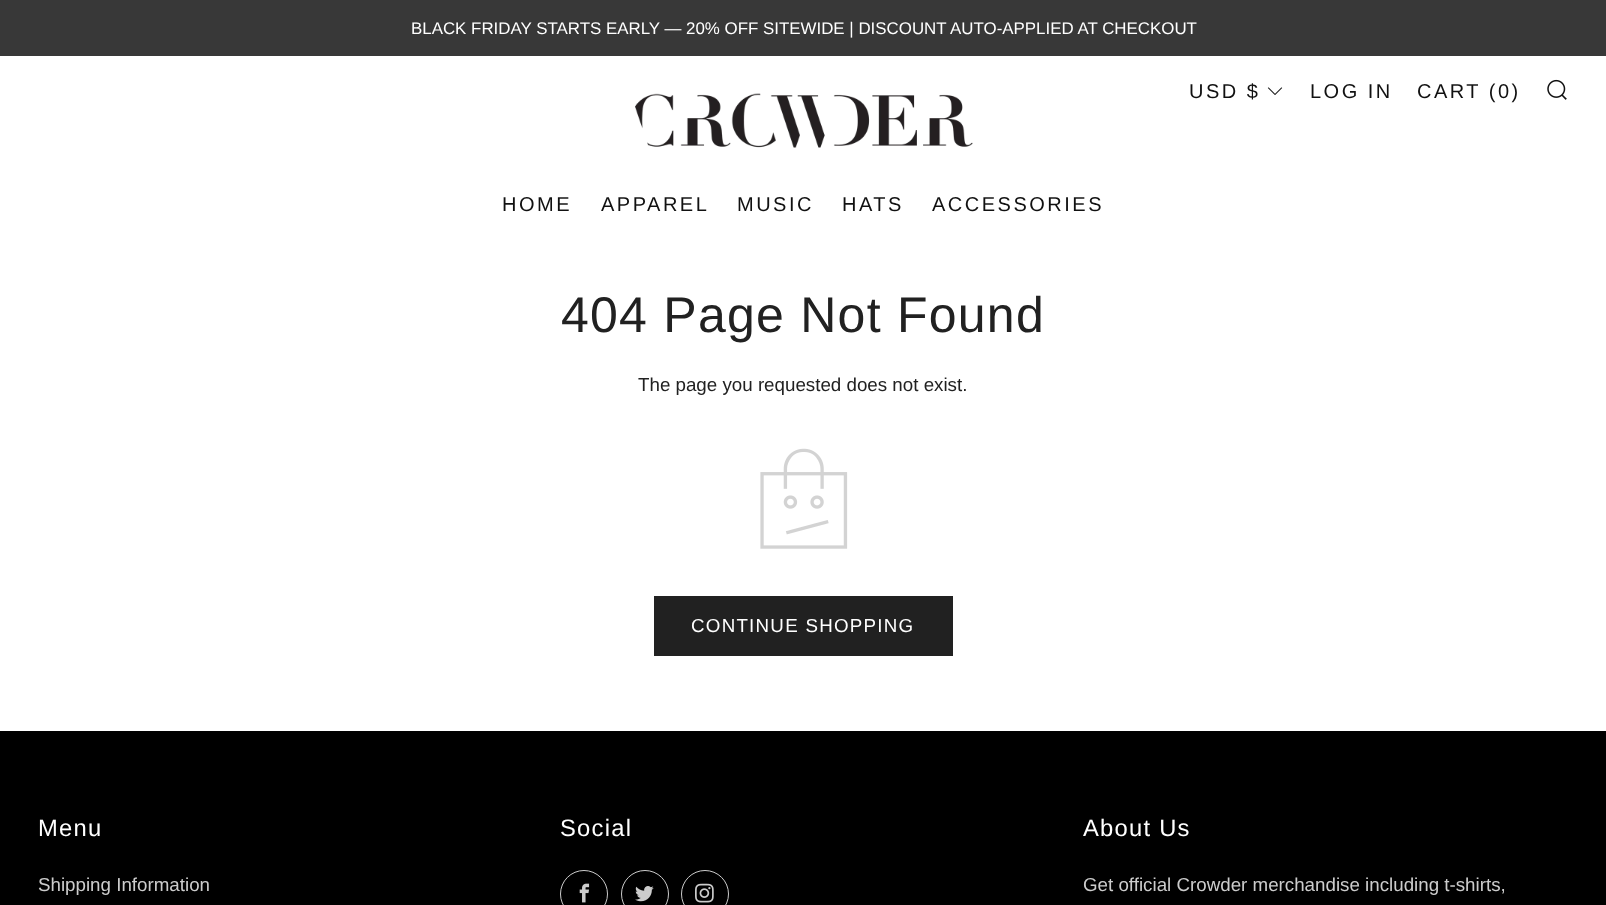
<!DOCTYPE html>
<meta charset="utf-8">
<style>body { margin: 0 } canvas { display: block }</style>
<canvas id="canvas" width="1606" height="905"></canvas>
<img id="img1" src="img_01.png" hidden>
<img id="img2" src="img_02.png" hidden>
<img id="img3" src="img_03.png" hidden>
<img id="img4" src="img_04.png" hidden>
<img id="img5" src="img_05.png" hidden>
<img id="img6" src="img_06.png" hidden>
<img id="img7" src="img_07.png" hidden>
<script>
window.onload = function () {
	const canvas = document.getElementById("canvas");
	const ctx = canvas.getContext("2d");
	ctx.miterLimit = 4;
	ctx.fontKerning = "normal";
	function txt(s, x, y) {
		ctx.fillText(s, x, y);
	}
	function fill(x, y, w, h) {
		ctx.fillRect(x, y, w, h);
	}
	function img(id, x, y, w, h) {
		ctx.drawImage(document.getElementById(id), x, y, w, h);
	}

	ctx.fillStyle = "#FFFFFF";
	fill(0, 0, 1606, 905);
	ctx.fillStyle = "#383838";
	fill(0, 0, 1606, 56);
	img("img1", 1267, 87, 16, 8);
	img("img2", 1547, 79, 20, 21);
	img("img3", 635, 93, 338, 55);
	img("img4", 760, 448, 88, 101);
	ctx.fillStyle = "#212121";
	fill(654, 596, 299, 60);
	ctx.fillStyle = "#000000";
	fill(0, 731, 1606, 174);
	ctx.beginPath();
	ctx.arc(584, 894, 23.5, 0, Math.PI * 2);
	ctx.strokeStyle = "#CCCCCC";
	ctx.stroke();
	img("img5", 579, 883, 11, 20);
	ctx.beginPath();
	ctx.arc(645, 894, 23.5, 0, Math.PI * 2);
	ctx.stroke();
	img("img6", 635, 886, 19, 16);
	ctx.beginPath();
	ctx.arc(705, 894, 23.5, 0, Math.PI * 2);
	ctx.stroke();
	img("img7", 695, 883, 19, 20);
	ctx.font = "16.9px Liberation Sans";
	ctx.fillStyle = "#FFFFFF";
	txt("BLACK FRIDAY STARTS EARLY — 20% OFF SITEWIDE | DISCOUNT AUTO-APPLIED AT CHECKOUT", 411, 34);
	ctx.letterSpacing = "2.5px";
	ctx.font = "20px Liberation Sans";
	ctx.fillStyle = "#111111";
	txt("USD $", 1189, 98);
	txt("LOG IN", 1310, 98);
	txt("CART (0)", 1417, 98);
	txt("HOME", 502, 211);
	txt("APPAREL", 601, 211);
	txt("MUSIC", 737, 211);
	txt("HATS", 842, 211);
	txt("ACCESSORIES", 932, 211);
	ctx.letterSpacing = "1.25px";
	ctx.font = "50px Liberation Sans";
	ctx.fillStyle = "#212121";
	txt("404 Page Not Found", 561, 332);
	ctx.letterSpacing = "0px";
	ctx.font = "18.75px Liberation Sans";
	txt("The page you requested does not exist.", 638, 391);
	ctx.letterSpacing = "1.25px";
	ctx.fillStyle = "#FFFFFF";
	txt("CONTINUE SHOPPING", 691, 632);
	ctx.font = "23.75px Liberation Sans";
	txt("Menu", 38, 836);
	ctx.letterSpacing = "0px";
	ctx.font = "18.75px Liberation Sans";
	ctx.fillStyle = "#CCCCCC";
	txt("Shipping Information", 38, 891);
	ctx.letterSpacing = "1.25px";
	ctx.font = "23.75px Liberation Sans";
	ctx.fillStyle = "#FFFFFF";
	txt("Social", 560, 836);
	txt("About Us", 1083, 836);
	ctx.letterSpacing = "0px";
	ctx.font = "18.75px Liberation Sans";
	ctx.fillStyle = "#CCCCCC";
	txt("Get official Crowder merchandise including t-shirts,", 1083, 891);
};
</script>
